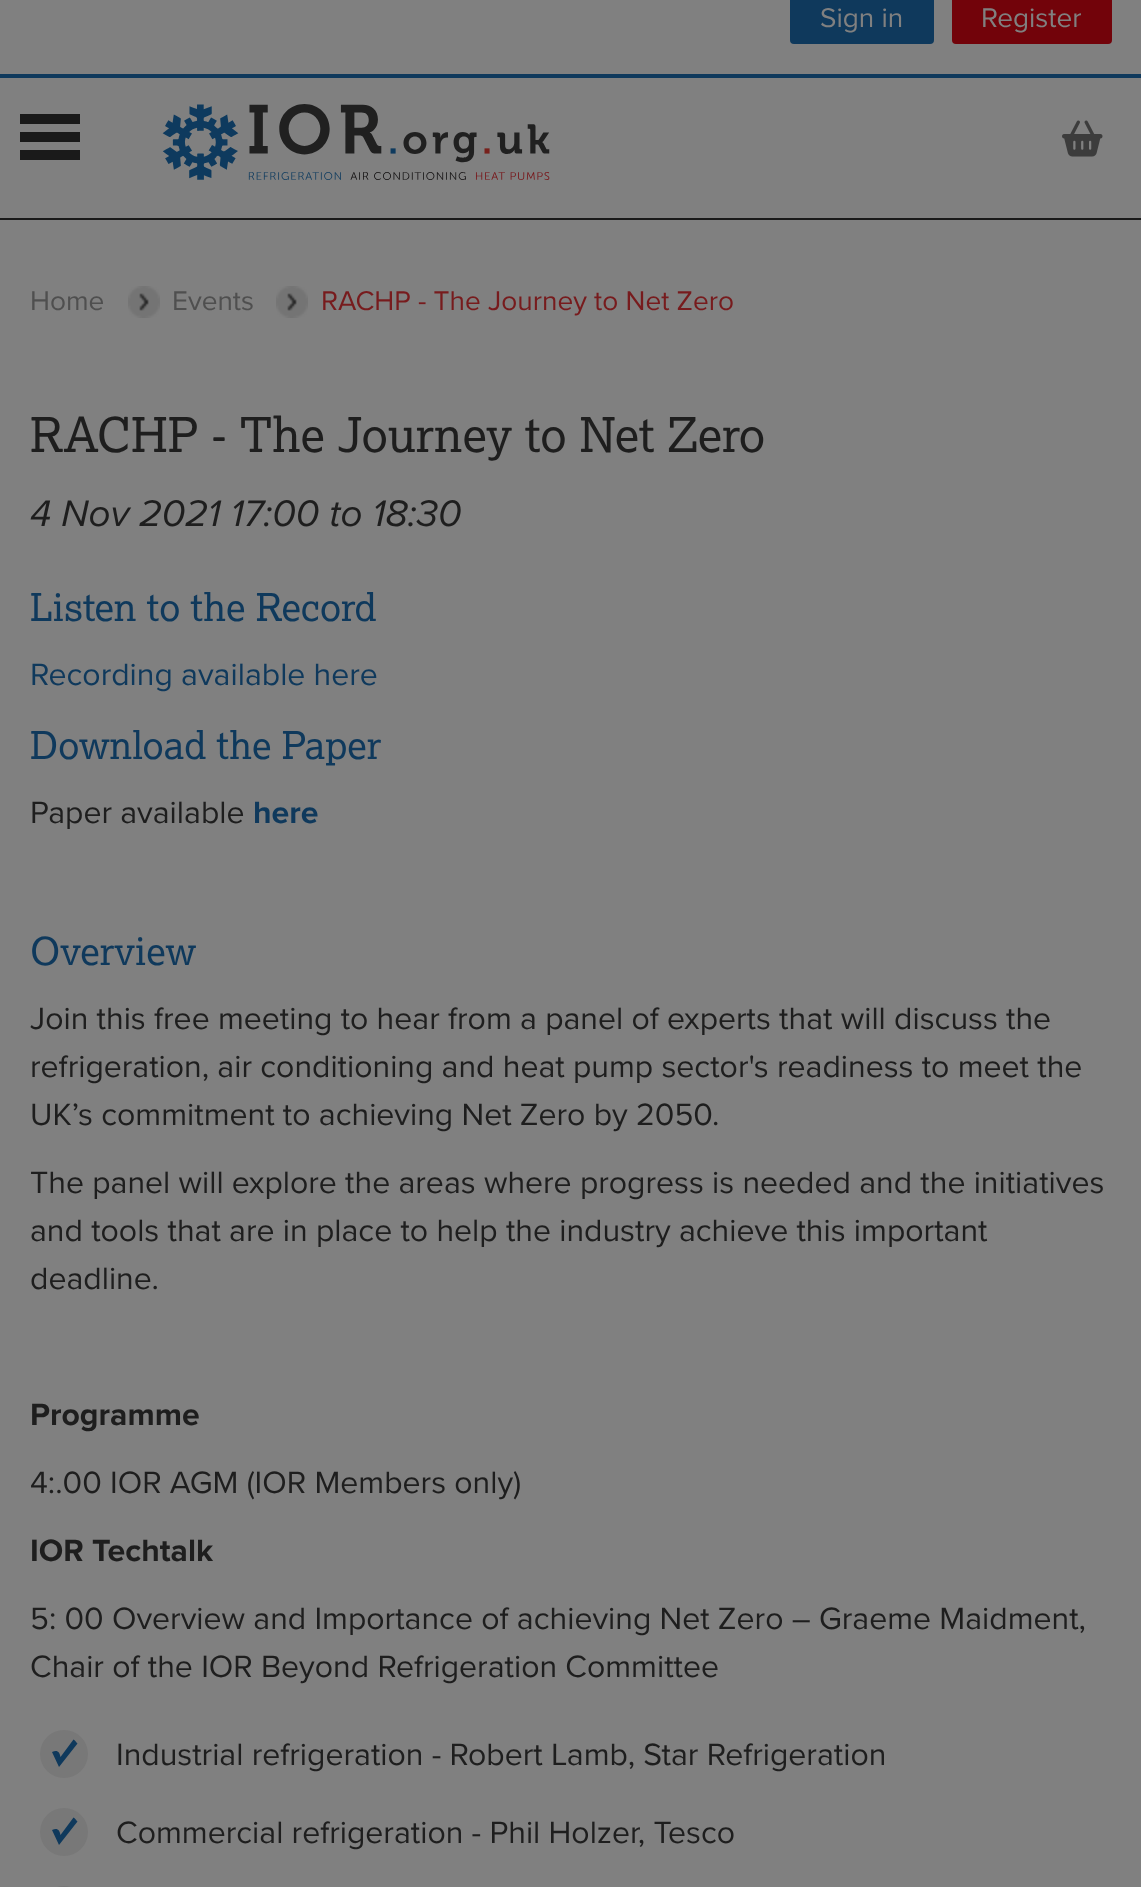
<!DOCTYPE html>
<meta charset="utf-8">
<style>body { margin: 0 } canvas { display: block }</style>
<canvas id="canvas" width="1141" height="1887"></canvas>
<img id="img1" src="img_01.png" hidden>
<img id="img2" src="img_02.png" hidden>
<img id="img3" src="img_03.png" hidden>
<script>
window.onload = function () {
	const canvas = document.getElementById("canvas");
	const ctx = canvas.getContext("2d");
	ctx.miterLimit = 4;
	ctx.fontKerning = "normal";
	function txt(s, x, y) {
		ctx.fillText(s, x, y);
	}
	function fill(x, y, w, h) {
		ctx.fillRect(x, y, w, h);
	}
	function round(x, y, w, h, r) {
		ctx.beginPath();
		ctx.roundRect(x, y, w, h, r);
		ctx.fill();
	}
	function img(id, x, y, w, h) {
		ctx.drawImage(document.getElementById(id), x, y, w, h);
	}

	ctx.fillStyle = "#808080";
	fill(0, 0, 1141, 1887);
	ctx.fillStyle = "#0F395C";
	fill(0, 74, 1141, 4);
	round(790, -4, 144, 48, 4);
	ctx.fillStyle = "#72030A";
	round(952, -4, 160, 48, 4);
	ctx.fillStyle = "#1A1A1A";
	fill(0, 218, 1141, 2);
	fill(20, 114, 60, 10);
	fill(20, 132, 60, 10);
	fill(20, 150, 60, 10);
	img("img1", 162, 104, 388, 76);
	img("img2", 1062, 120, 41, 37);
	img("img3", 128, 286, 32, 32);
	img("img3", 276, 286, 32, 32);
	ctx.fillStyle = "#787878";
	ctx.beginPath();
	ctx.arc(64, 1754, 24, 0, Math.PI * 2);
	ctx.fill();
	ctx.fillStyle = "#0F395C";
	ctx.beginPath();
	ctx.moveTo(59, 1767);
	ctx.lineTo(52, 1752);
	ctx.bezierCurveTo(57.5, 1749.5, 59.5, 1752, 60.5, 1757);
	ctx.lineTo(73.5, 1739.5);
	ctx.bezierCurveTo(75, 1740.5, 76, 1742, 77.5, 1743.5);
	ctx.closePath();
	ctx.fill();
	ctx.fillStyle = "#787878";
	ctx.beginPath();
	ctx.arc(64, 1832, 24, 0, Math.PI * 2);
	ctx.fill();
	ctx.fillStyle = "#0F395C";
	ctx.beginPath();
	ctx.moveTo(59, 1845);
	ctx.lineTo(52, 1830);
	ctx.bezierCurveTo(57.5, 1827.5, 59.5, 1830, 60.5, 1835);
	ctx.lineTo(73.5, 1817.5);
	ctx.bezierCurveTo(75, 1818.5, 76, 1820, 77.5, 1821.5);
	ctx.closePath();
	ctx.fill();
	ctx.fillStyle = "#787878";
	ctx.beginPath();
	ctx.arc(64, 1910, 24, 0, Math.PI * 2);
	ctx.fill();
	ctx.font = "28px Proxima Nova";
	ctx.fillStyle = "#808080";
	txt("Sign in", 820, 27);
	txt("Register", 981, 27);
	ctx.fillStyle = "#4F4F4F";
	txt("Home", 30, 310);
	txt("Events", 172, 310);
	ctx.fillStyle = "#771B1D";
	txt("RACHP - The Journey to Net Zero", 321, 310);
	ctx.font = "48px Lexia";
	ctx.fillStyle = "#1E1E1E";
	txt("RACHP - The Journey to Net Zero", 30, 452);
	ctx.font = "italic 38.4px Proxima Nova";
	txt("4 Nov 2021 17:00 to 18:30", 30, 526);
	ctx.font = "38.4px Lexia";
	ctx.fillStyle = "#0F395C";
	txt("Listen to the Record", 30, 621);
	ctx.font = "32px Proxima Nova";
	txt("Recording available here", 30, 685);
	ctx.font = "38.4px Lexia";
	txt("Download the Paper", 30, 759);
	ctx.font = "32px Proxima Nova";
	ctx.fillStyle = "#1E1E1E";
	txt("Paper available", 30, 823);
	ctx.font = "bold 32px Proxima Nova";
	ctx.fillStyle = "#0F395C";
	txt("here", 253, 823);
	ctx.font = "38.4px Lexia";
	txt("Overview", 30, 965);
	ctx.font = "32px Proxima Nova";
	ctx.fillStyle = "#1E1E1E";
	txt("Join this free meeting to hear from a panel of experts that will discuss the", 30, 1029);
	txt("refrigeration, air conditioning and heat pump sector's readiness to meet the", 30, 1077);
	txt("UK’s commitment to achieving Net Zero by 2050.", 30, 1125);
	txt("The panel will explore the areas where progress is needed and the initiatives", 30, 1193);
	txt("and tools that are in place to help the industry achieve this important", 30, 1241);
	txt("deadline.", 30, 1289);
	ctx.font = "bold 32px Proxima Nova";
	txt("Programme", 30, 1425);
	ctx.font = "32px Proxima Nova";
	txt("4:.00 IOR AGM (IOR Members only)", 30, 1493);
	ctx.font = "bold 32px Proxima Nova";
	txt("IOR Techtalk", 30, 1561);
	ctx.font = "32px Proxima Nova";
	txt("5: 00 Overview and Importance of achieving Net Zero – Graeme Maidment,", 30, 1629);
	txt("Chair of the IOR Beyond Refrigeration Committee", 30, 1677);
	txt("Industrial refrigeration - Robert Lamb, Star Refrigeration", 116, 1765);
	txt("Commercial refrigeration - Phil Holzer, Tesco", 116, 1843);
};
</script>
